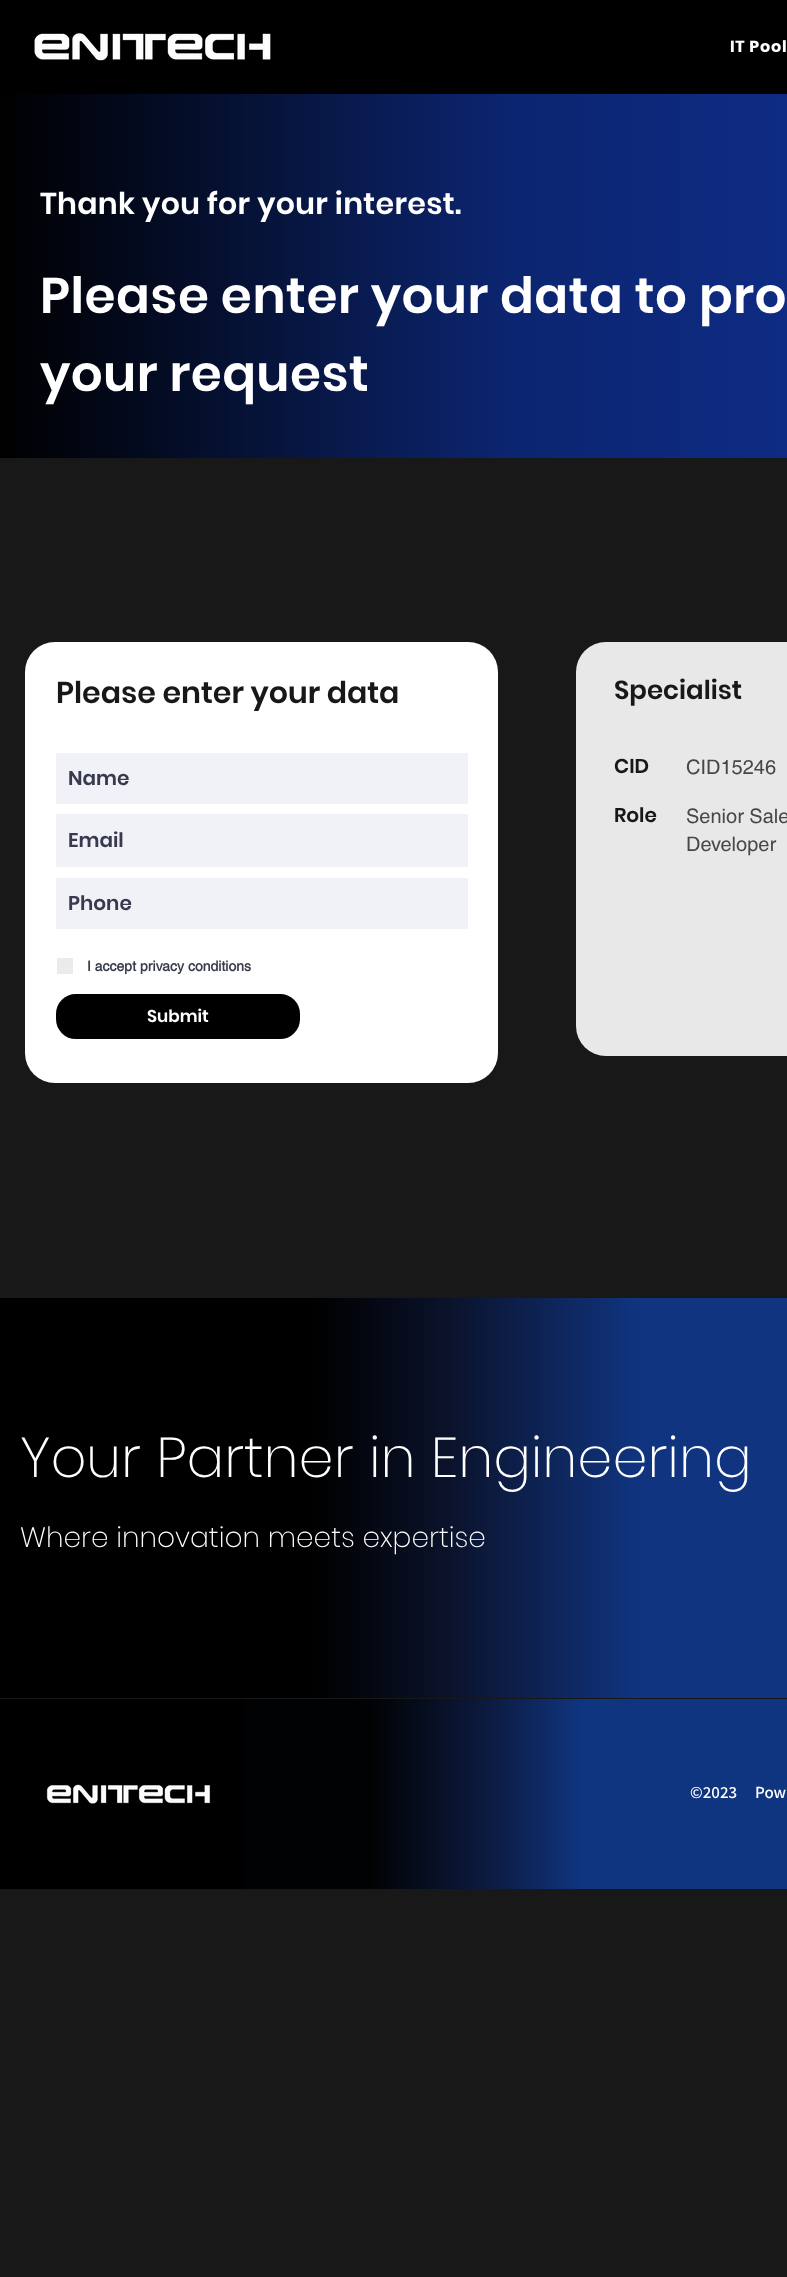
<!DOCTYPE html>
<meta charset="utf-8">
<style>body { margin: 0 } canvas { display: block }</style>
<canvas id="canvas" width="787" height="2277"></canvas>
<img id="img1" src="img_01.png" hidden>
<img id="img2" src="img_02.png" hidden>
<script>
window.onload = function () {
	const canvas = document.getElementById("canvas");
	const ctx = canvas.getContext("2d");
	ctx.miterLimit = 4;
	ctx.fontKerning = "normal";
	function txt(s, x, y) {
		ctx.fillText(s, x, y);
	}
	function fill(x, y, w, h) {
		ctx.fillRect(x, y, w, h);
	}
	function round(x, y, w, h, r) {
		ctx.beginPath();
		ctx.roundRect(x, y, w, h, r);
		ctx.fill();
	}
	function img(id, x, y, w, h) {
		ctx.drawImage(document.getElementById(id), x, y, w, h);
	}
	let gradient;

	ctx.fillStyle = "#181818";
	fill(0, 0, 787, 2277);
	ctx.fillStyle = "#000000";
	fill(0, 0, 787, 94);
	img("img1", 34, 33, 237, 28);
	gradient = ctx.createLinearGradient(0, 276, 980, 276);
	gradient.addColorStop(0, "#000000");
	gradient.addColorStop(0.52, "#0C2570");
	gradient.addColorStop(1, "#0F3090");
	ctx.fillStyle = gradient;
	fill(0, 94, 787, 364);
	ctx.fillStyle = "#E8E8E8";
	round(576, 642, 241, 414, 30);
	ctx.fillStyle = "#FFFFFF";
	round(25, 642, 473, 441, 30);
	ctx.fillStyle = "#F0F2F8";
	fill(56, 753, 412, 51);
	fill(56, 814, 412, 53);
	ctx.fillStyle = "#F0F2F7";
	fill(56, 878, 412, 51);
	ctx.fillStyle = "#EBEBEB";
	fill(57, 958, 16, 16);
	ctx.fillStyle = "#000000";
	ctx.beginPath();
	ctx.roundRect(57, 995, 242, 43, 19);
	ctx.fill();
	ctx.strokeStyle = "#000000";
	ctx.lineWidth = 2;
	ctx.stroke();
	gradient = ctx.createLinearGradient(0, 1498, 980, 1498);
	gradient.addColorStop(0.32, "#000000");
	gradient.addColorStop(0.46, "#0B132C");
	gradient.addColorStop(0.65, "#10347F");
	ctx.fillStyle = gradient;
	fill(0, 1298, 787, 400);
	ctx.fillStyle = "#000000";
	fill(0, 1699, 245, 190);
	img("img2", 46, 1784, 165, 20);
	gradient = ctx.createLinearGradient(245, 1794, 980, 1794);
	gradient.addColorStop(0.17, "#010203");
	gradient.addColorStop(0.34, "#0C1C44");
	gradient.addColorStop(0.46, "#103580");
	ctx.fillStyle = gradient;
	fill(245, 1699, 542, 190);
	ctx.letterSpacing = "0.75px";
	ctx.font = "bold 16px Poppins";
	ctx.fillStyle = "#FFFFFF";
	txt("IT Pool", 730, 52);
	ctx.letterSpacing = "0.3px";
	ctx.font = "600 30px Poppins";
	txt("Thank you for your interest.", 40, 214);
	ctx.letterSpacing = "0.5px";
	ctx.font = "600 50px Poppins";
	txt("Please enter your data to pro", 40, 313);
	txt("your request", 40, 391);
	ctx.letterSpacing = "0px";
	ctx.font = "600 30px Poppins";
	ctx.fillStyle = "#181818";
	txt("Please enter your data", 56, 703);
	ctx.font = "600 20px Poppins";
	ctx.fillStyle = "#373B4D";
	txt("Name", 68, 785);
	txt("Email", 68, 847);
	txt("Phone", 68, 910);
	ctx.font = "bold 14px helvetica";
	txt("I accept privacy conditions", 87, 971);
	ctx.font = "600 17px Poppins";
	ctx.fillStyle = "#FFFFFF";
	txt("Submit", 147, 1022);
	ctx.font = "600 26px Poppins";
	ctx.fillStyle = "#181818";
	txt("Specialist", 614, 699);
	ctx.font = "600 20px Poppins";
	txt("CID", 614, 773);
	ctx.font = "20px helvetica";
	ctx.fillStyle = "#474747";
	txt("CID15246", 686, 774);
	ctx.font = "600 20px Poppins";
	ctx.fillStyle = "#181818";
	txt("Role", 614, 822);
	ctx.font = "20px helvetica";
	ctx.fillStyle = "#474747";
	txt("Senior Sale", 686, 823);
	txt("Developer", 686, 851);
	ctx.font = "200 56px Poppins";
	ctx.fillStyle = "#FFFFFF";
	txt("Your Partner in Engineering", 20, 1477);
	ctx.font = "200 28px Poppins";
	txt("Where innovation meets expertise", 20, 1547);
	ctx.font = "600 17px Assistant";
	txt("©2023", 690, 1798);
	txt("Pow", 755, 1798);
};
</script>
